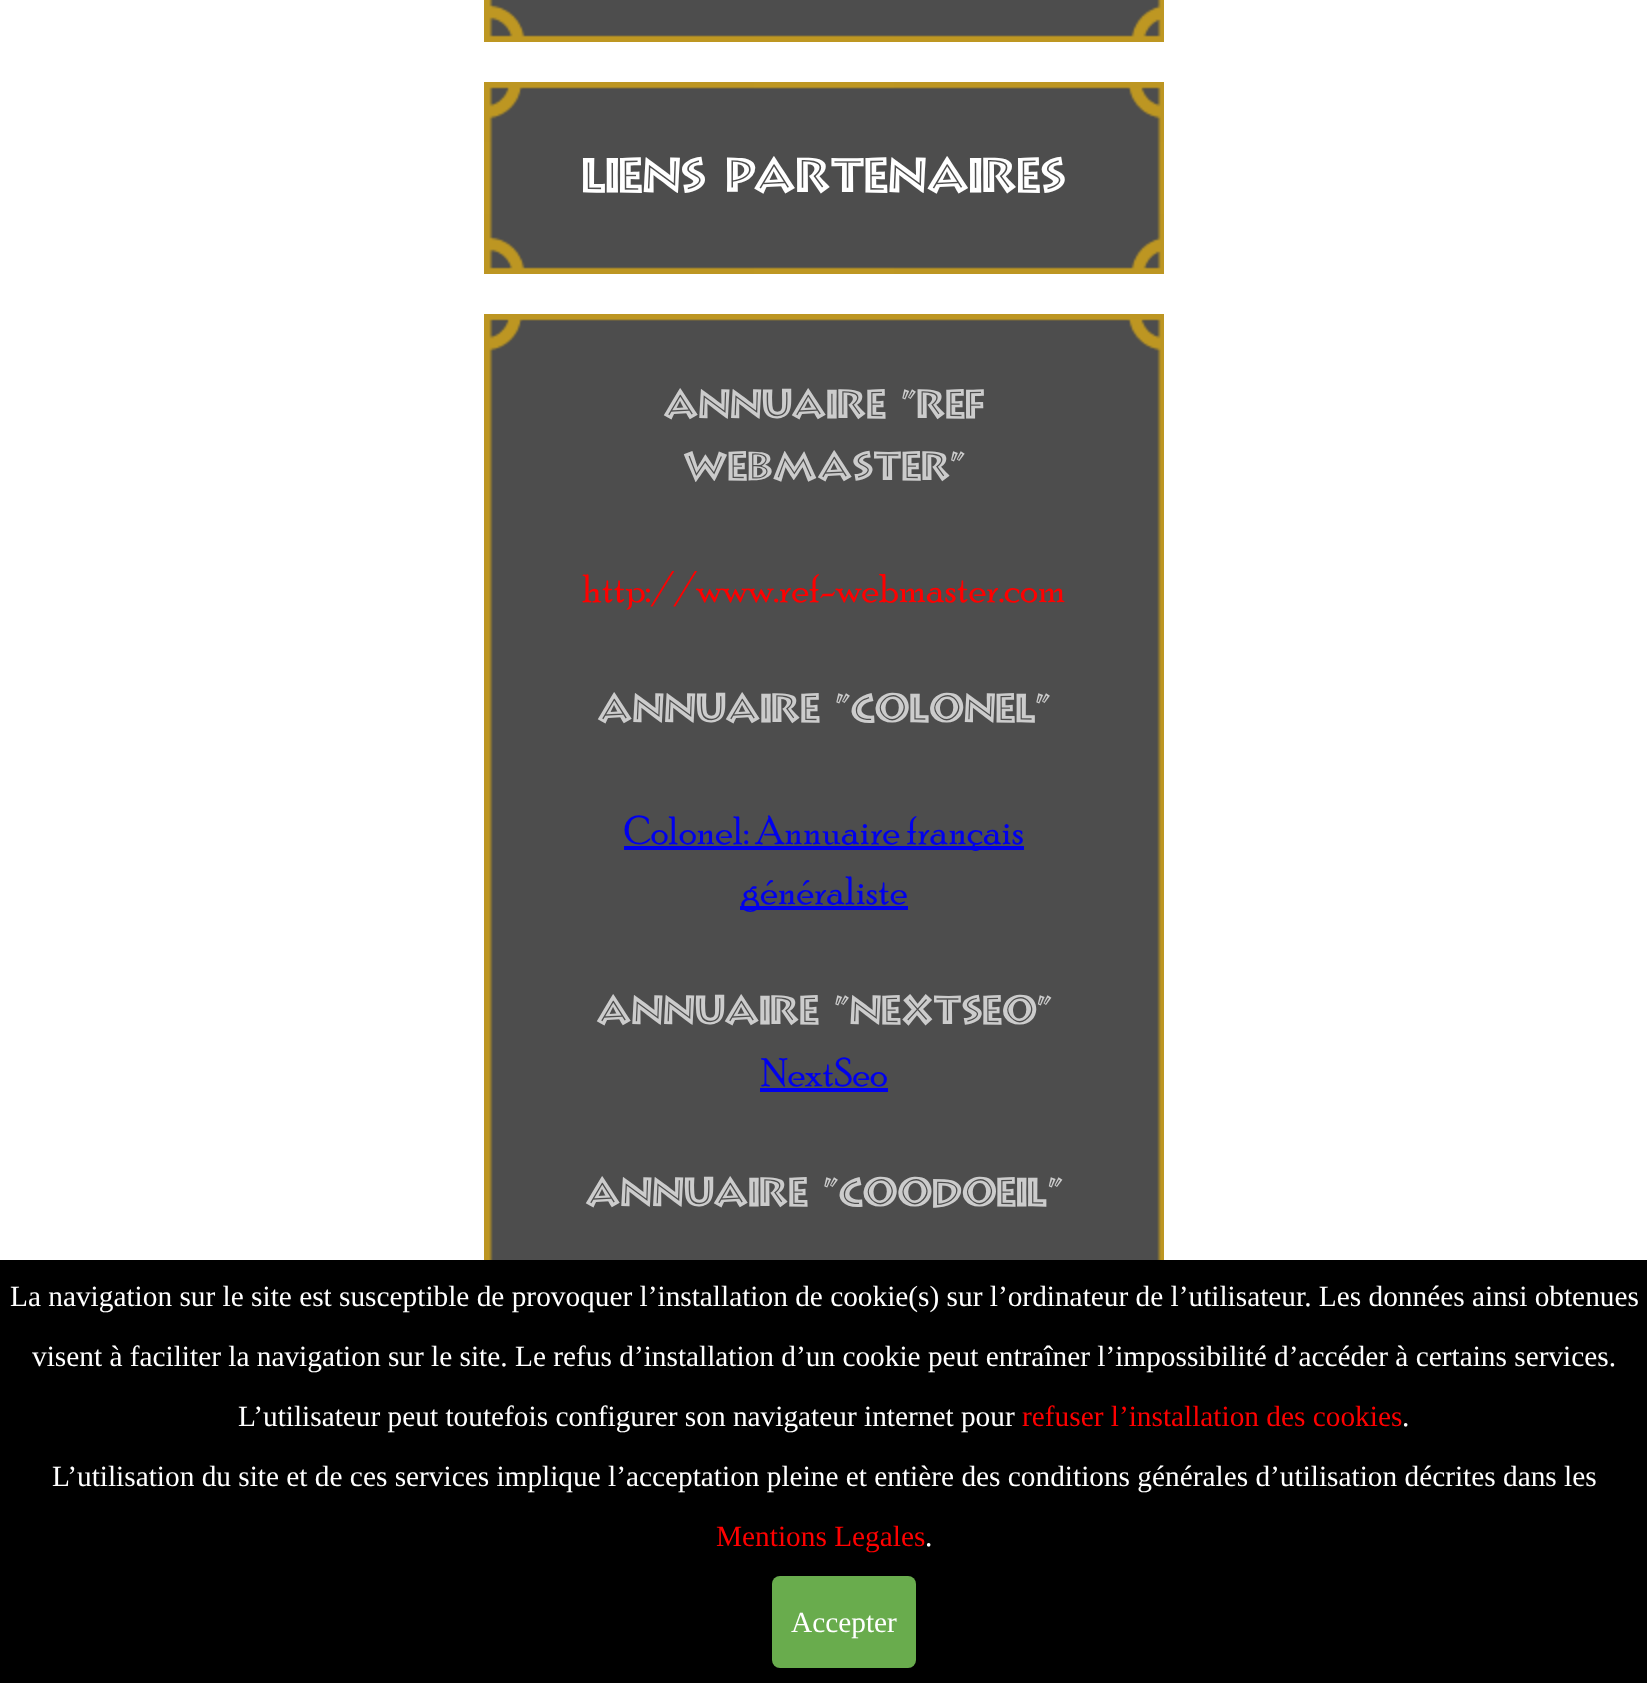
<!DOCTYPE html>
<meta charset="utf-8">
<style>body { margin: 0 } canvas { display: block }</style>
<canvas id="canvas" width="1647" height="1683"></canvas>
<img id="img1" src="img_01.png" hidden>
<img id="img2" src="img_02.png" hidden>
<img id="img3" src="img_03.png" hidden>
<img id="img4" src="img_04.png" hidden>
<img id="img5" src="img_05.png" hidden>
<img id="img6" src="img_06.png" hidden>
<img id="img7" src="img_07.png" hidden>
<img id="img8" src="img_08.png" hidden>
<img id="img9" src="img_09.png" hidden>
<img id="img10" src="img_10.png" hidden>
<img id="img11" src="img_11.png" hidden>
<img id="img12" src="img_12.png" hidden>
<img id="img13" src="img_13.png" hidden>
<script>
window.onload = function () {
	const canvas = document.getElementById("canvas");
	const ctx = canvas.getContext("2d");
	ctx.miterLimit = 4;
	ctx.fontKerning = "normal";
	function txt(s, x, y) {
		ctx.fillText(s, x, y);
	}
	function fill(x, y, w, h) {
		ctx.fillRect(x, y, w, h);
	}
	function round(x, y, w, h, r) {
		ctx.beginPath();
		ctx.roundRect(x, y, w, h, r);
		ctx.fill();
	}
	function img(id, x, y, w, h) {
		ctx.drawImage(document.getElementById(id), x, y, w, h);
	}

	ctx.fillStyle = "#FFFFFF";
	fill(0, 0, 1647, 1683);
	ctx.fillStyle = "#4D4D4D";
	fill(484, 0, 680, 42);
	img("img1", 484, 0, 270, 42);
	img("img2", 754, 35, 140, 7);
	img("img3", 894, 0, 270, 42);
	fill(484, 82, 680, 192);
	img("img4", 484, 82, 270, 60);
	img("img5", 754, 82, 140, 7);
	img("img6", 894, 82, 270, 60);
	img("img7", 484, 142, 9, 72);
	img("img8", 1157, 142, 7, 72);
	img("img9", 484, 214, 270, 60);
	img("img2", 754, 267, 140, 7);
	img("img10", 894, 214, 270, 60);
	fill(484, 314, 680, 946);
	img("img4", 484, 314, 270, 60);
	img("img11", 754, 314, 140, 7);
	img("img6", 894, 314, 270, 60);
	img("img12", 484, 374, 9, 886);
	img("img13", 1157, 374, 7, 886);
	ctx.fillStyle = "#0000EE";
	fill(624, 846, 400, 4);
	fill(740, 906, 168, 4);
	fill(760, 1088, 128, 4);
	ctx.fillStyle = "#000000";
	fill(0, 1260, 1647, 423);
	ctx.fillStyle = "#69AC4D";
	round(772, 1576, 144, 92, 8);
	ctx.wordSpacing = "3px";
	ctx.font = "48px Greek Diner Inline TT";
	ctx.fillStyle = "#FFFFFF";
	txt("liens partenaires", 582, 192);
	ctx.wordSpacing = "1px";
	ctx.font = "40px Greek Diner Inline TT";
	ctx.fillStyle = "#CCCCCC";
	txt("Annuaire \"ref", 663, 418);
	ctx.wordSpacing = "0px";
	txt("webmaster\"", 683, 480);
	ctx.font = "40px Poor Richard";
	ctx.fillStyle = "#FF0000";
	txt("http://www.ref-webmaster.com", 582, 602);
	ctx.wordSpacing = "1px";
	ctx.font = "40px Greek Diner Inline TT";
	ctx.fillStyle = "#CCCCCC";
	txt("Annuaire \"Colonel\"", 597, 722);
	ctx.wordSpacing = "0px";
	ctx.font = "40px Poor Richard";
	ctx.fillStyle = "#0000EE";
	txt("Colonel: Annuaire français", 624, 844);
	txt("généraliste", 741, 904);
	ctx.wordSpacing = "1px";
	ctx.font = "40px Greek Diner Inline TT";
	ctx.fillStyle = "#CCCCCC";
	txt("Annuaire \"nextseo", 596, 1024);
	ctx.wordSpacing = "0px";
	txt("\"", 1037, 1024);
	ctx.font = "40px Poor Richard";
	ctx.fillStyle = "#0000EE";
	txt("NextSeo", 761, 1086);
	ctx.wordSpacing = "1px";
	ctx.font = "40px Greek Diner Inline TT";
	ctx.fillStyle = "#CCCCCC";
	txt("Annuaire \"Coodoeil", 585, 1206);
	ctx.wordSpacing = "0px";
	txt("\"", 1048, 1206);
	ctx.font = "29.33px Liberation Serif";
	ctx.fillStyle = "#FFFFFF";
	txt("La navigation sur le site est susceptible de provoquer l’installation de cookie(s) sur l’ordinateur de l’utilisateur. Les données ainsi obtenues", 10, 1306);
	txt("visent à faciliter la navigation sur le site.", 32, 1366);
	txt("Le refus d’installation d’un cookie peut entraîner l’impossibilité d’accéder à certains services.", 515, 1366);
	txt("L’utilisateur peut toutefois configurer son navigateur internet pour", 238, 1426);
	ctx.fillStyle = "#FF0000";
	txt("refuser l’installation des cookies", 1022, 1426);
	ctx.fillStyle = "#FFFFFF";
	txt(".", 1402, 1426);
	txt("L’utilisation du site et de ces services implique l’acceptation pleine et entière des conditions générales d’utilisation décrites dans les", 52, 1486);
	ctx.fillStyle = "#FF0000";
	txt("Mentions Legales", 716, 1546);
	ctx.fillStyle = "#FFFFFF";
	txt(".", 925, 1546);
	txt("Accepter", 791, 1632);
};
</script>
